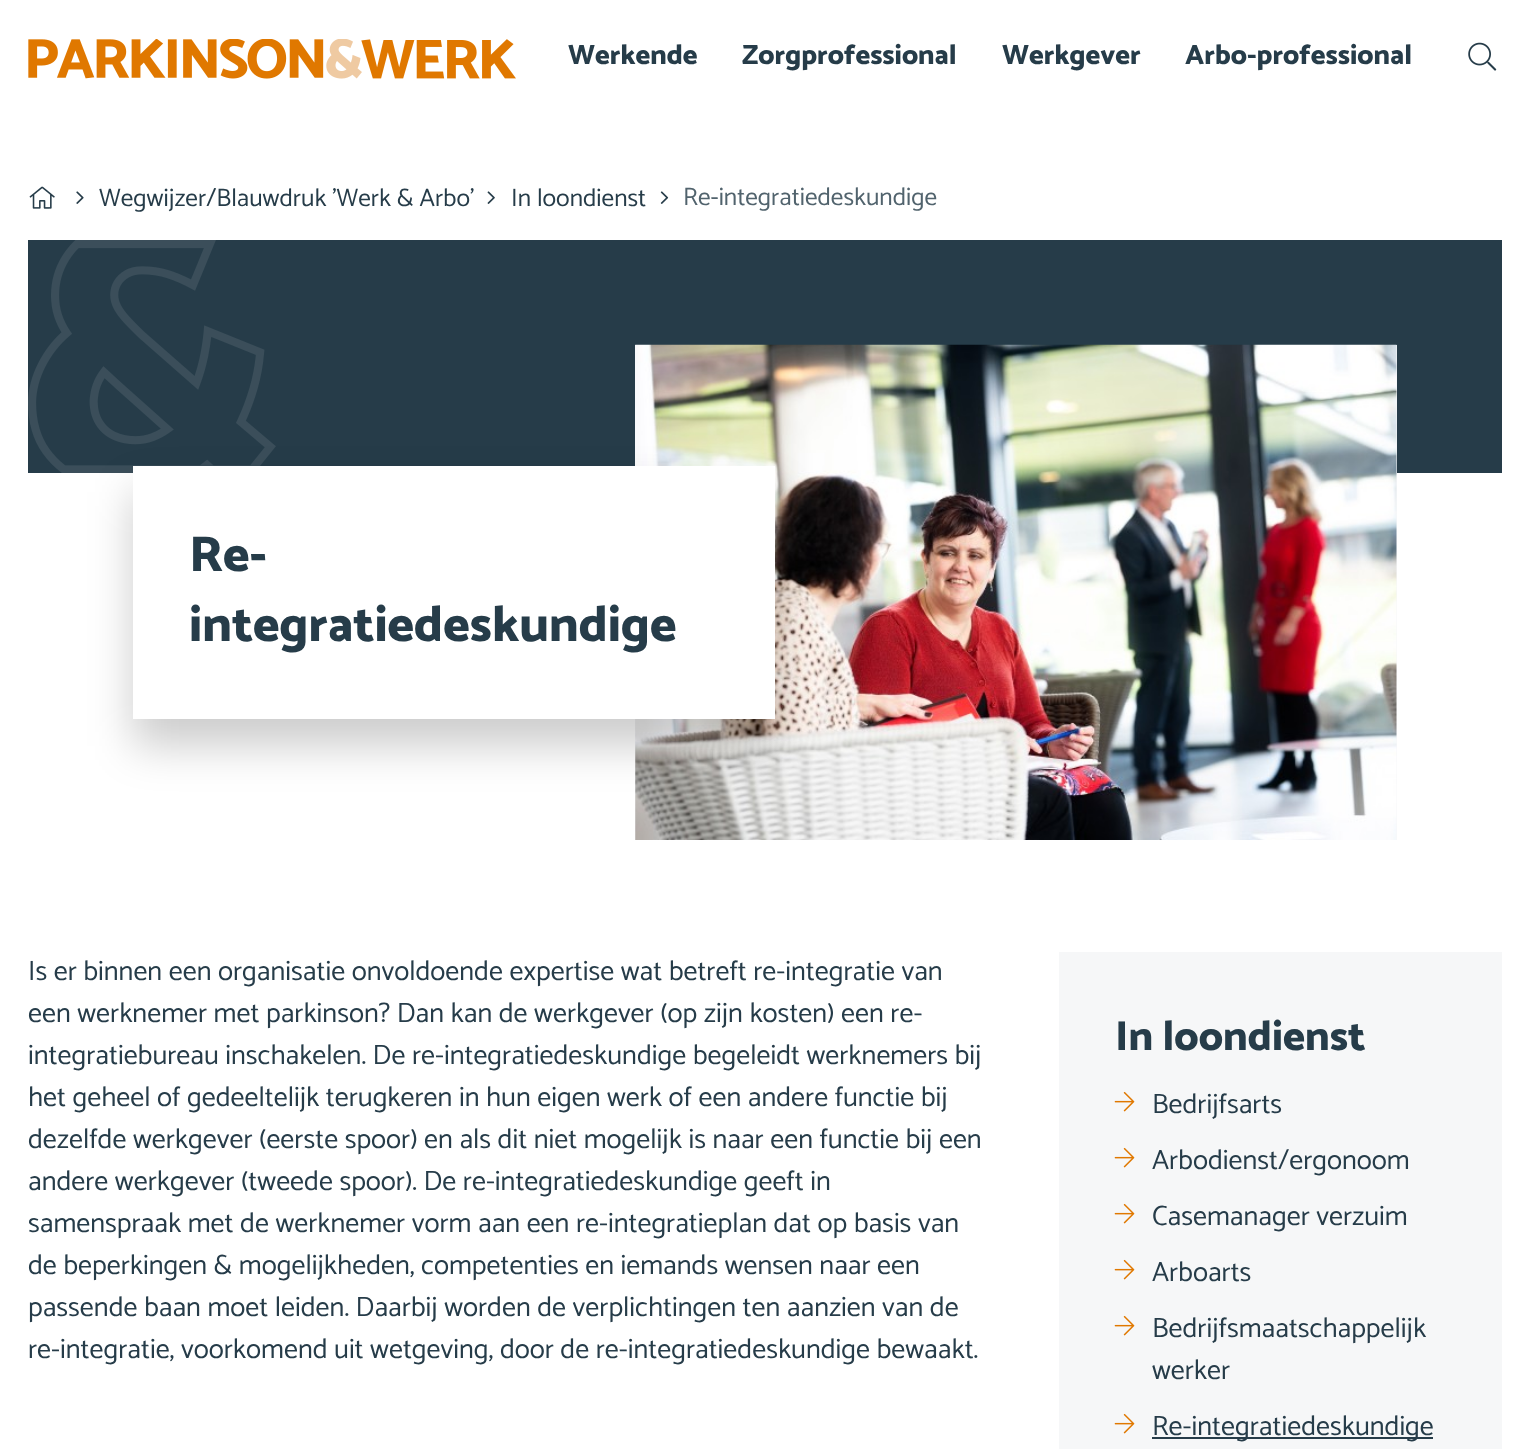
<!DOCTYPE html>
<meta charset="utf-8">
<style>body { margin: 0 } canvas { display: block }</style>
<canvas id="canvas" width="1529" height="1449"></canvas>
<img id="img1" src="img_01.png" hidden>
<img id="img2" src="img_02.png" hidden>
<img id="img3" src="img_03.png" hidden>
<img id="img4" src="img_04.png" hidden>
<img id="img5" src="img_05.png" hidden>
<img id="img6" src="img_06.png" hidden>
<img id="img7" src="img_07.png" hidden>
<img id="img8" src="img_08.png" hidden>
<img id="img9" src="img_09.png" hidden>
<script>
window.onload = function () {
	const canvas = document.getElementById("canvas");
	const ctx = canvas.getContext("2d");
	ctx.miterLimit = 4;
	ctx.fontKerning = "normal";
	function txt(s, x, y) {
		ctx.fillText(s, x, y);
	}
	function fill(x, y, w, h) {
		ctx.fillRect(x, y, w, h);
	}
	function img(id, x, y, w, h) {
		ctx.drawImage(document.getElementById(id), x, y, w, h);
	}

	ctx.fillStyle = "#FFFFFF";
	fill(0, 0, 1529, 1449);
	img("img1", 28, 39, 488, 40);
	img("img2", 1468, 42, 29, 29);
	img("img3", 29, 186, 26, 23);
	img("img4", 76, 191, 8, 13);
	img("img5", 487, 191, 8, 13);
	img("img6", 660, 191, 9, 13);
	ctx.fillStyle = "#263C49";
	fill(28, 240, 1474, 233);
	img("img7", 28, 240, 248, 233);
	ctx.fillStyle = "#F6F7F8";
	fill(635, 345, 762, 495);
	img("img8", 635, 344, 762, 496);
	ctx.fillStyle = "rgba(0, 0, 0, 0.2)";
	ctx.filter = "blur(22px)";
	ctx.beginPath();
	ctx.rect(133, 492, 642, 254);
	ctx.fill();
	ctx.filter = "none";
	ctx.fillStyle = "#FFFFFF";
	fill(133, 466, 642, 253);
	ctx.fillStyle = "#F6F7F8";
	fill(1059, 952, 443, 497);
	img("img9", 1114, 1091, 21, 21);
	img("img9", 1114, 1147, 21, 21);
	img("img9", 1114, 1203, 21, 21);
	img("img9", 1114, 1259, 21, 21);
	img("img9", 1114, 1315, 21, 21);
	img("img9", 1114, 1413, 21, 21);
	ctx.fillStyle = "#263C49";
	fill(1152, 1437, 281, 2);
	ctx.font = "800 28px Catamaran";
	txt("Werkende", 568, 64);
	txt("Zorgprofessional", 742, 64);
	txt("Werkgever", 1002, 64);
	txt("Arbo-professional", 1185, 64);
	ctx.font = "25.25px Catamaran";
	txt("Wegwijzer/Blauwdruk 'Werk & Arbo'", 99, 206);
	txt("In loondienst", 511, 206);
	ctx.fillStyle = "#51636D";
	txt("Re-integratiedeskundige", 683, 205);
	ctx.font = "800 50.5px Catamaran";
	ctx.fillStyle = "#263C49";
	txt("Re-", 189, 571);
	txt("integratiedeskundige", 189, 641);
	ctx.font = "28px Catamaran";
	txt("Is er binnen een organisatie onvoldoende expertise wat betreft re-integratie van", 28, 980);
	txt("een werknemer met parkinson? Dan kan de werkgever (op zijn kosten) een re-", 28, 1022);
	txt("integratiebureau inschakelen. De re-integratiedeskundige begeleidt werknemers bij", 28, 1064);
	txt("het geheel of gedeeltelijk terugkeren in hun eigen werk of een andere functie bij", 28, 1106);
	txt("dezelfde werkgever (eerste spoor) en als dit niet mogelijk is naar een functie bij een", 28, 1148);
	txt("andere werkgever (tweede spoor). De re-integratiedeskundige geeft in", 28, 1190);
	txt("samenspraak met de werknemer vorm aan een re-integratieplan dat op basis van", 28, 1232);
	txt("de beperkingen & mogelijkheden, competenties en iemands wensen naar een", 28, 1274);
	txt("passende baan moet leiden. Daarbij worden de verplichtingen ten aanzien van de", 28, 1316);
	txt("re-integratie, voorkomend uit wetgeving, door de re-integratiedeskundige bewaakt.", 28, 1358);
	ctx.font = "800 42px Catamaran";
	txt("In loondienst", 1115, 1050);
	ctx.font = "28px Catamaran";
	txt("Bedrijfsarts", 1152, 1113);
	txt("Arbodienst/ergonoom", 1152, 1169);
	txt("Casemanager verzuim", 1152, 1225);
	txt("Arboarts", 1152, 1281);
	txt("Bedrijfsmaatschappelijk", 1152, 1337);
	txt("werker", 1152, 1379);
	txt("Re-integratiedeskundige", 1152, 1435);
};
</script>
